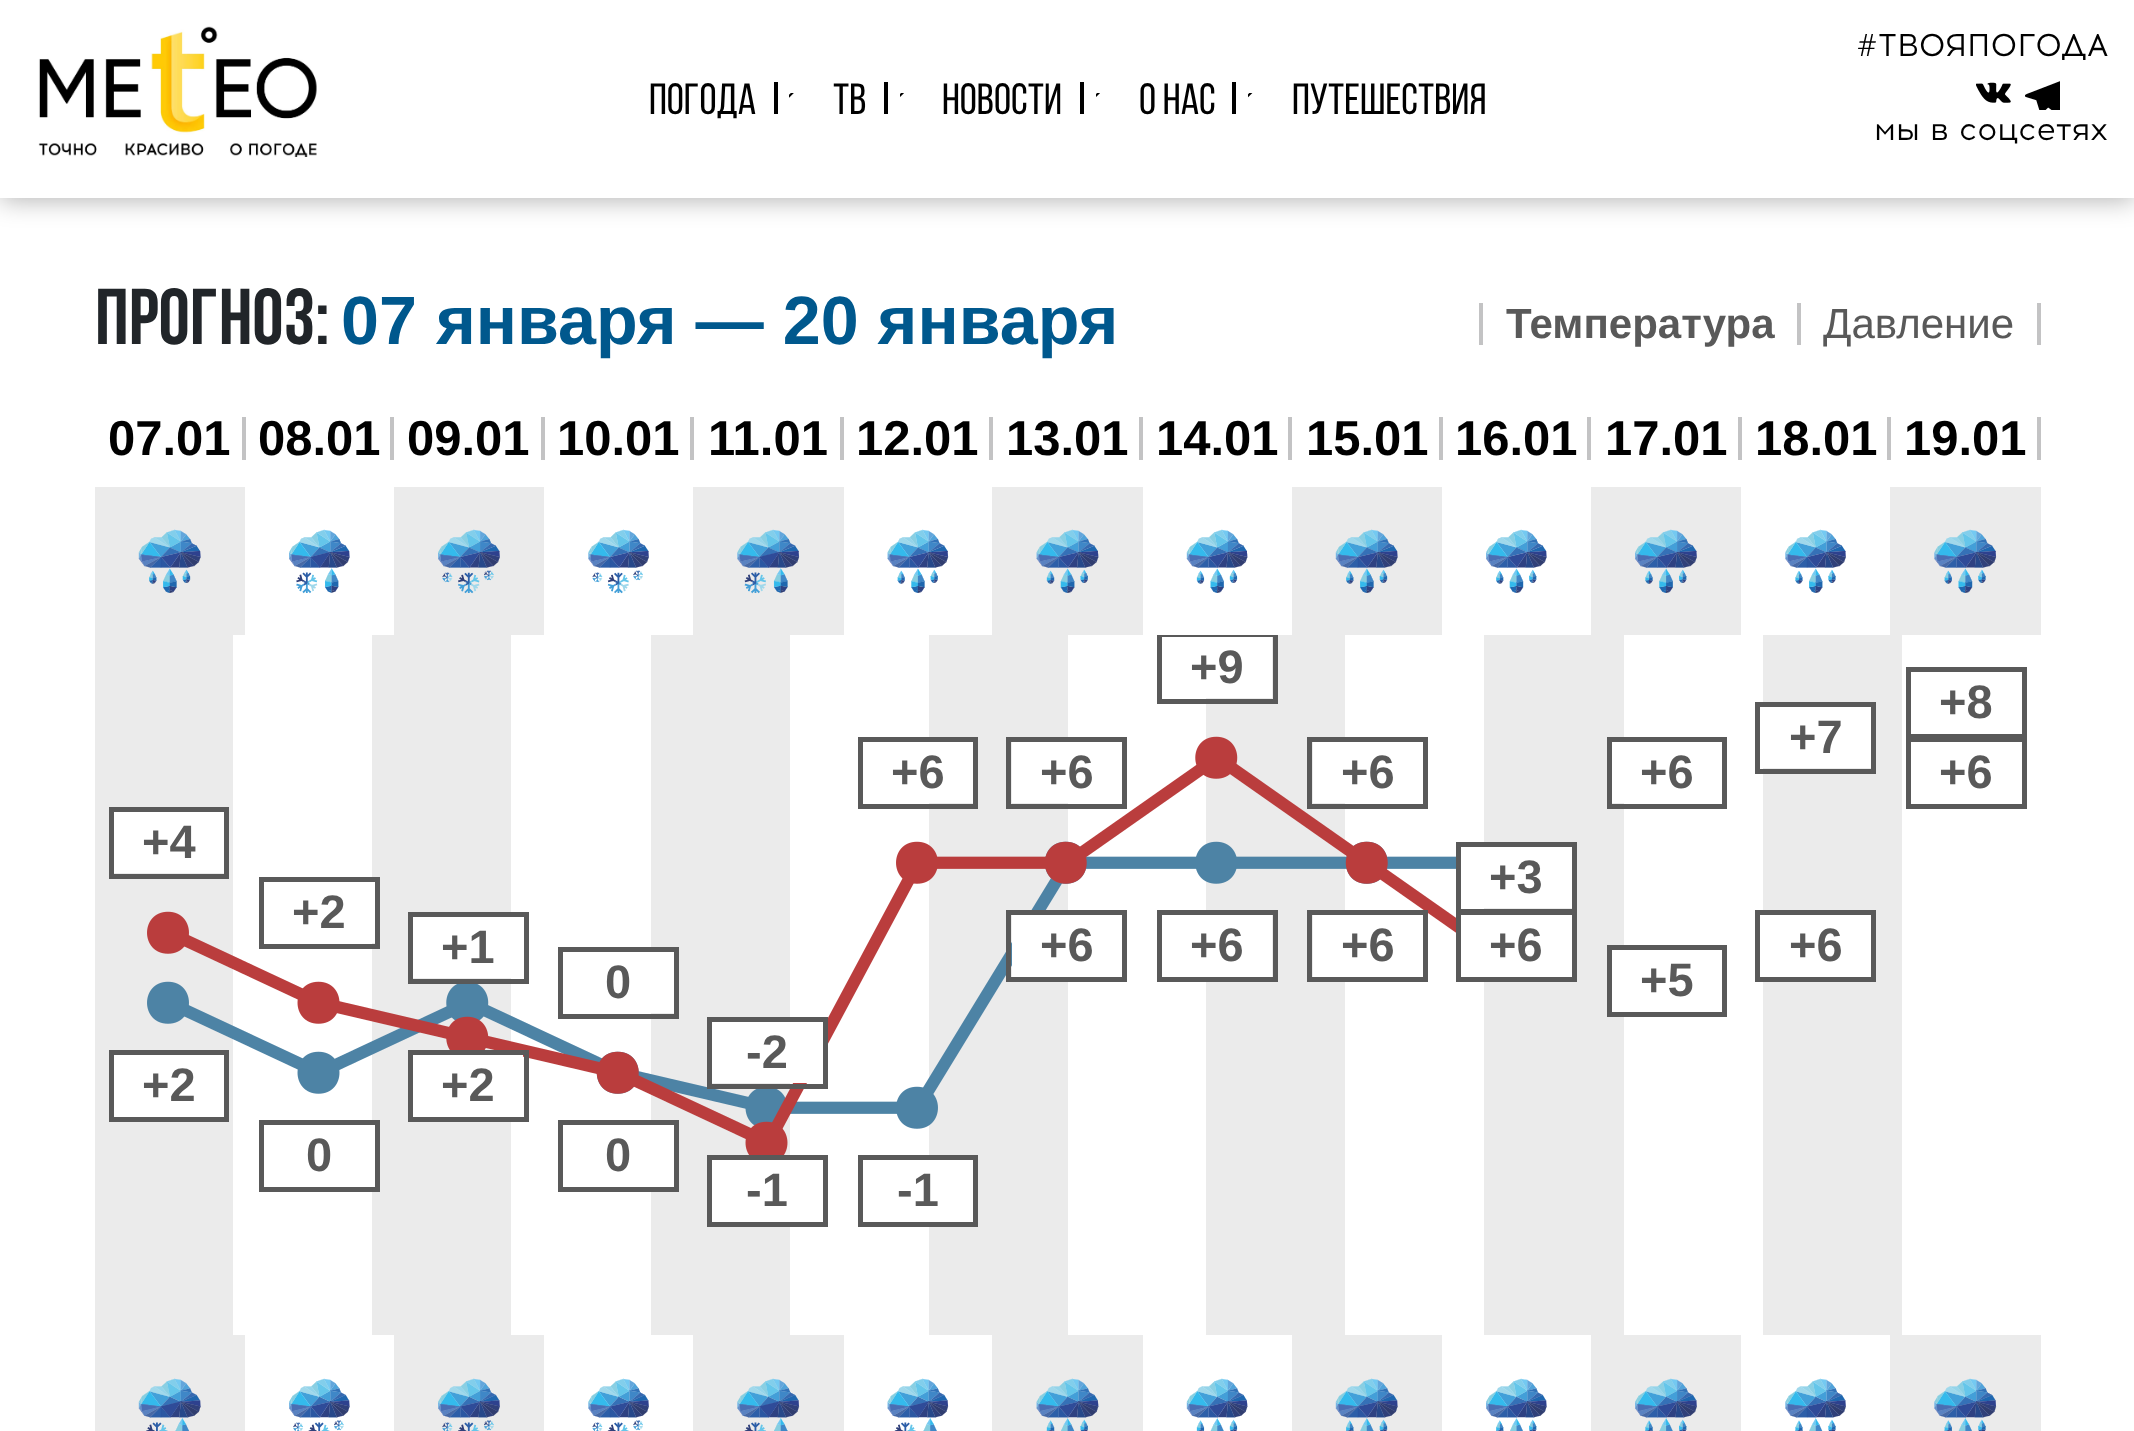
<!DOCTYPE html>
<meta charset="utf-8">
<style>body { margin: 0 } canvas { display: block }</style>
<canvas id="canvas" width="2134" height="1431"></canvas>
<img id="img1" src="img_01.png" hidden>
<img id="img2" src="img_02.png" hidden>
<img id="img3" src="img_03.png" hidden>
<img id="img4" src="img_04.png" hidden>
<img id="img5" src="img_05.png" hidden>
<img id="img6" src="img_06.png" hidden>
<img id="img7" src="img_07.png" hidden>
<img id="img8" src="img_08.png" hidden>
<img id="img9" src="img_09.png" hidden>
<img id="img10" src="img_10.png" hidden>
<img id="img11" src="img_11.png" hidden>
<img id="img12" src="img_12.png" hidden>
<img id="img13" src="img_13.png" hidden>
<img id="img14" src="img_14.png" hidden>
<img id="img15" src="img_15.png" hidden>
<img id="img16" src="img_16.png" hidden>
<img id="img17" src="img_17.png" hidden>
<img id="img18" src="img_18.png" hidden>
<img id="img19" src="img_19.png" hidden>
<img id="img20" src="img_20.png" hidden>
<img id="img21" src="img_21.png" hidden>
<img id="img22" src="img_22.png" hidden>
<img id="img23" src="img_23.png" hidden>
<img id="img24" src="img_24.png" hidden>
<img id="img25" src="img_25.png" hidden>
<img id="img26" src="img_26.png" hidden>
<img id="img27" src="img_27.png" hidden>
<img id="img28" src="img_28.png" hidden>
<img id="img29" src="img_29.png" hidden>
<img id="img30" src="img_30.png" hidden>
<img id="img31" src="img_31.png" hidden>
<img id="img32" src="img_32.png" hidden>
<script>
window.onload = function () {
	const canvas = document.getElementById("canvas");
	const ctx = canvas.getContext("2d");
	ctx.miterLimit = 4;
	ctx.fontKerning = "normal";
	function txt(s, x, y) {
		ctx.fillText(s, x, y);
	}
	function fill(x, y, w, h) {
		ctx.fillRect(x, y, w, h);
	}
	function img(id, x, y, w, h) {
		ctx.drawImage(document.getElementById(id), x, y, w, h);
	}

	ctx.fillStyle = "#FFFFFF";
	fill(0, 0, 2134, 1431);
	ctx.fillStyle = "rgba(0, 0, 0, 0.3)";
	ctx.filter = "blur(13px)";
	ctx.beginPath();
	ctx.rect(0, 2, 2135, 198);
	ctx.fill();
	ctx.filter = "none";
	ctx.fillStyle = "#FFFFFF";
	fill(0, 0, 2134, 198);
	img("img1", 38, 26, 279, 131);
	ctx.fillStyle = "#000000";
	fill(774, 82, 4, 32);
	img("img2", 789, 93, 5, 5);
	fill(884, 82, 4, 32);
	img("img3", 900, 93, 4, 4);
	fill(1080, 82, 4, 32);
	img("img3", 1096, 93, 4, 4);
	fill(1232, 82, 4, 32);
	img("img4", 1248, 93, 5, 5);
	img("img5", 1976, 82, 35, 21);
	img("img6", 2025, 81, 35, 29);
	ctx.fillStyle = "#C3C3C4";
	fill(1479, 303, 4, 42);
	fill(2037, 303, 4, 42);
	fill(1797, 303, 4, 42);
	fill(242, 417, 4, 43);
	fill(390, 417, 4, 43);
	fill(541, 417, 4, 43);
	fill(690, 417, 4, 43);
	fill(840, 417, 4, 43);
	fill(989, 417, 4, 43);
	fill(1139, 417, 4, 43);
	fill(1288, 417, 4, 43);
	fill(1439, 417, 4, 43);
	fill(1587, 417, 4, 43);
	fill(1738, 417, 4, 43);
	fill(1887, 417, 4, 43);
	fill(2037, 417, 4, 43);
	ctx.fillStyle = "#EBEBEB";
	fill(95, 487, 150, 148);
	img("img7", 138, 529, 63, 64);
	img("img8", 289, 529, 61, 65);
	fill(394, 487, 150, 148);
	img("img9", 438, 529, 62, 65);
	img("img10", 588, 529, 61, 65);
	fill(693, 487, 151, 148);
	img("img11", 737, 529, 63, 65);
	img("img12", 887, 529, 62, 64);
	fill(992, 487, 151, 148);
	img("img13", 1036, 529, 63, 64);
	img("img14", 1186, 529, 62, 64);
	fill(1292, 487, 150, 148);
	img("img7", 1335, 529, 63, 64);
	img("img15", 1486, 529, 61, 64);
	fill(1591, 487, 150, 148);
	img("img16", 1635, 529, 62, 64);
	img("img17", 1785, 529, 61, 64);
	fill(1890, 487, 151, 148);
	img("img18", 1934, 529, 63, 64);
	fill(95, 635, 138, 700);
	fill(372, 635, 139, 700);
	fill(651, 635, 139, 700);
	fill(929, 635, 139, 700);
	fill(1206, 635, 139, 700);
	fill(1484, 635, 140, 700);
	fill(1763, 635, 139, 700);
	ctx.save();
	ctx.beginPath();
	ctx.rect(95, 635, 1946, 700);
	ctx.clip();
	ctx.strokeStyle = "#595959";
	ctx.lineWidth = 5;
	ctx.strokeRect(1159.5, 634.5, 116, 67);
	ctx.restore();
	ctx.fillStyle = "#FFFFFF";
	fill(1206, 637, 66, 61);
	ctx.strokeStyle = "#595959";
	ctx.lineWidth = 5;
	ctx.strokeRect(1757.5, 704.5, 116, 67);
	fill(1763, 707, 108, 61);
	img("img19", 147, 736, 1309, 419);
	ctx.strokeRect(860.5, 739.5, 115, 67);
	fill(929, 742, 44, 61);
	ctx.strokeRect(1008.5, 739.5, 116, 67);
	fill(1012, 742, 56, 61);
	ctx.strokeRect(1309.5, 739.5, 116, 67);
	fill(1313, 742, 32, 61);
	ctx.strokeRect(1609.5, 739.5, 115, 67);
	fill(1612, 742, 12, 61);
	ctx.strokeRect(1908.5, 669.5, 116, 67);
	ctx.strokeRect(1908.5, 739.5, 116, 67);
	ctx.strokeRect(111.5, 809.5, 115, 67);
	fill(114, 812, 110, 61);
	ctx.strokeRect(1458.5, 912.5, 116, 67);
	ctx.strokeRect(1458.5, 844.5, 116, 67);
	fill(1484, 847, 88, 61);
	ctx.strokeRect(261.5, 879.5, 116, 67);
	fill(372, 882, 3, 61);
	ctx.strokeRect(410.5, 914.5, 116, 67);
	fill(413, 917, 98, 61);
	ctx.strokeRect(560.5, 949.5, 116, 67);
	fill(651, 952, 23, 61);
	ctx.strokeRect(709.5, 1019.5, 116, 67);
	fill(712, 1022, 111, 61);
	ctx.strokeRect(1008.5, 912.5, 116, 67);
	fill(1012, 915, 56, 62);
	ctx.strokeRect(1159.5, 912.5, 116, 67);
	fill(1206, 915, 66, 62);
	ctx.strokeRect(1309.5, 912.5, 116, 67);
	fill(1313, 915, 32, 62);
	fill(1484, 915, 88, 62);
	ctx.strokeRect(1757.5, 912.5, 116, 67);
	fill(1763, 915, 108, 62);
	ctx.strokeRect(1609.5, 947.5, 115, 67);
	fill(1612, 950, 12, 62);
	ctx.strokeRect(111.5, 1052.5, 115, 67);
	fill(114, 1055, 110, 62);
	ctx.strokeRect(410.5, 1052.5, 116, 67);
	fill(413, 1055, 110, 62);
	ctx.strokeRect(261.5, 1122.5, 116, 67);
	fill(372, 1125, 3, 62);
	ctx.strokeRect(560.5, 1122.5, 116, 67);
	fill(651, 1125, 23, 62);
	ctx.strokeRect(709.5, 1157.5, 116, 67);
	fill(712, 1160, 78, 62);
	ctx.strokeRect(860.5, 1157.5, 115, 67);
	fill(929, 1160, 44, 62);
	ctx.fillStyle = "#EBEBEB";
	fill(95, 1335, 150, 96);
	img("img20", 138, 1378, 63, 53);
	img("img21", 289, 1378, 61, 53);
	fill(394, 1335, 150, 96);
	img("img22", 438, 1378, 62, 53);
	img("img23", 588, 1378, 61, 53);
	fill(693, 1335, 151, 96);
	img("img24", 737, 1378, 63, 53);
	img("img25", 887, 1378, 62, 53);
	fill(992, 1335, 151, 96);
	img("img26", 1036, 1378, 63, 53);
	img("img27", 1186, 1378, 62, 53);
	fill(1292, 1335, 150, 96);
	img("img28", 1335, 1378, 63, 53);
	img("img29", 1486, 1378, 61, 53);
	fill(1591, 1335, 150, 96);
	img("img30", 1635, 1378, 62, 53);
	img("img31", 1785, 1378, 61, 53);
	fill(1890, 1335, 151, 96);
	img("img32", 1934, 1378, 63, 53);
	ctx.font = "43.75px Bebas Neue";
	ctx.fillStyle = "#000000";
	txt("ПОГОДА", 649, 114);
	txt("ТВ", 833, 114);
	txt("НОВОСТИ", 942, 114);
	txt("О НАС", 1139, 114);
	txt("ПУТЕШЕСТВИЯ", 1292, 114);
	ctx.font = "31.5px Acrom";
	txt("#ТВОЯПОГОДА", 1856, 56);
	txt("мы в соцсетях", 1874, 140);
	ctx.font = "bold 79px Bebas Neue";
	ctx.fillStyle = "#212529";
	txt("ПРОГНОЗ:", 95, 344);
	ctx.font = "bold 68.25px Liberation Sans";
	ctx.fillStyle = "#00588D";
	txt("07 января — 20 января", 341, 344);
	ctx.font = "bold 42px Liberation Sans";
	ctx.fillStyle = "#595959";
	txt("Температура", 1506, 338);
	ctx.font = "42px Liberation Sans";
	txt("Давление", 1823, 338);
	ctx.font = "bold 49px Liberation Sans";
	ctx.fillStyle = "#000000";
	txt("07.01", 108, 455);
	txt("08.01", 258, 455);
	txt("09.01", 407, 455);
	txt("10.01", 557, 455);
	txt("11.01", 708, 455);
	txt("12.01", 856, 455);
	txt("13.01", 1006, 455);
	txt("14.01", 1156, 455);
	txt("15.01", 1306, 455);
	txt("16.01", 1455, 455);
	txt("17.01", 1605, 455);
	txt("18.01", 1755, 455);
	txt("19.01", 1904, 455);
	ctx.font = "bold 47px Liberation Sans";
	ctx.fillStyle = "#595959";
	txt("+9", 1190, 683);
	txt("+7", 1789, 753);
	txt("+6", 891, 788);
	txt("+6", 1040, 788);
	txt("+6", 1341, 788);
	txt("+6", 1640, 788);
	txt("+6", 1939, 788);
	txt("+4", 142, 858);
	txt("+3", 1489, 893);
	txt("+2", 292, 928);
	txt("+1", 441, 963);
	txt("0", 605, 998);
	txt("-2", 746, 1068);
	txt("+8", 1939, 718);
	txt("+6", 1040, 961);
	txt("+6", 1190, 961);
	txt("+6", 1341, 961);
	txt("+6", 1489, 961);
	txt("+6", 1789, 961);
	txt("+5", 1640, 996);
	txt("+2", 142, 1101);
	txt("+2", 441, 1101);
	txt("0", 306, 1171);
	txt("0", 605, 1171);
	txt("-1", 746, 1206);
	txt("-1", 897, 1206);
};
</script>
